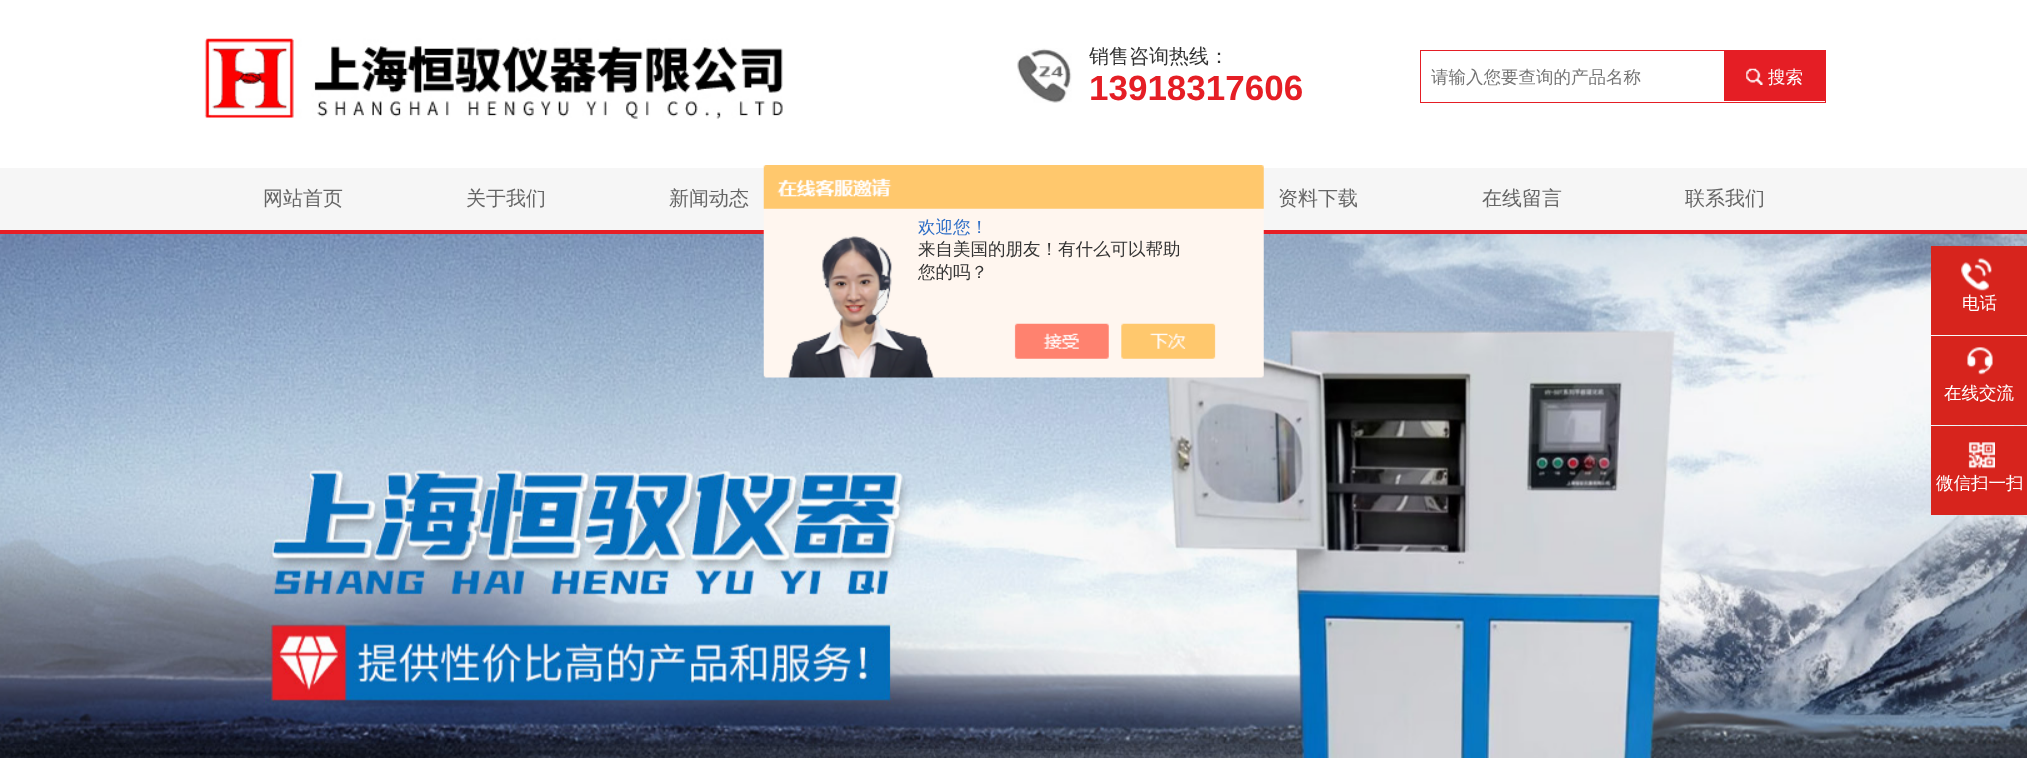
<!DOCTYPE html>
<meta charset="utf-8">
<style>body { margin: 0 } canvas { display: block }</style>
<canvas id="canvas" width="2027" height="758"></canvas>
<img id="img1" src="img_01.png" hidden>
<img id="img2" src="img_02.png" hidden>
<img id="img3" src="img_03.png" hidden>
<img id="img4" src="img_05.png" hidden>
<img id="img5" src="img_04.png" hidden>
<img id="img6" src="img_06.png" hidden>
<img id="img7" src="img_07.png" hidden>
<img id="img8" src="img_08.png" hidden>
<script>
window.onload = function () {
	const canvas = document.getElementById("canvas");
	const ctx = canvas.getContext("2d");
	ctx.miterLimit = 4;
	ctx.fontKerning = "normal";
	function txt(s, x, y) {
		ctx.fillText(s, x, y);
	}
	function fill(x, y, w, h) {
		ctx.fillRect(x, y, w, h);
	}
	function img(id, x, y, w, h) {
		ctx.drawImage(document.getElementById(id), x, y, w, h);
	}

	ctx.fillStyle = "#FFFFFF";
	fill(0, 0, 2027, 758);
	img("img1", 204, 38, 579, 81);
	img("img2", 1017, 48, 55, 55);
	ctx.strokeStyle = "#E51E25";
	ctx.strokeRect(1420.5, 50.5, 405, 52);
	ctx.fillStyle = "#E51E25";
	fill(1724, 51, 101, 50);
	img("img3", 1746, 68, 17, 17);
	ctx.fillStyle = "#F6F6F6";
	fill(0, 168, 2027, 62);
	ctx.fillStyle = "#E51E25";
	fill(0, 230, 2027, 4);
	img("img4", 0, 234, 2027, 524);
	img("img5", 763, 165, 501, 213);
	ctx.fillStyle = "#D7241D";
	fill(1931, 246, 96, 89);
	img("img6", 1961, 258, 31, 33);
	fill(1931, 336, 96, 89);
	img("img7", 1967, 347, 26, 28);
	fill(1931, 426, 96, 89);
	img("img8", 1968, 442, 27, 27);
	ctx.font = "500 20px WenQuanYi Zen Hei";
	ctx.fillStyle = "#333333";
	txt("销售咨询热线：", 1089, 63);
	ctx.font = "bold 35px Liberation Sans";
	ctx.fillStyle = "#E51E25";
	txt("13918317606", 1089, 100);
	ctx.font = "500 17.5px WenQuanYi Zen Hei";
	ctx.fillStyle = "#757575";
	txt("请输入您要查询的产品名称", 1431, 83);
	ctx.fillStyle = "#FFFFFF";
	txt("搜索", 1768, 83);
	ctx.font = "500 20px WenQuanYi Zen Hei";
	ctx.fillStyle = "#666666";
	txt("网站首页", 263, 205);
	txt("关于我们", 466, 205);
	txt("新闻动态", 669, 205);
	txt("资料下载", 1278, 205);
	txt("在线留言", 1482, 205);
	txt("联系我们", 1685, 205);
	ctx.font = "500 17.5px WenQuanYi Zen Hei";
	ctx.fillStyle = "#2E6EC6";
	txt("欢迎您！", 918, 233);
	ctx.fillStyle = "#333333";
	txt("来自美国的朋友！有什么可以帮助", 918, 255);
	txt("您的吗？", 918, 278);
	ctx.fillStyle = "#FFFFFF";
	txt("电话", 1962, 309);
	txt("在线交流", 1944, 399);
	txt("微信扫一扫", 1936, 489);
};
</script>
